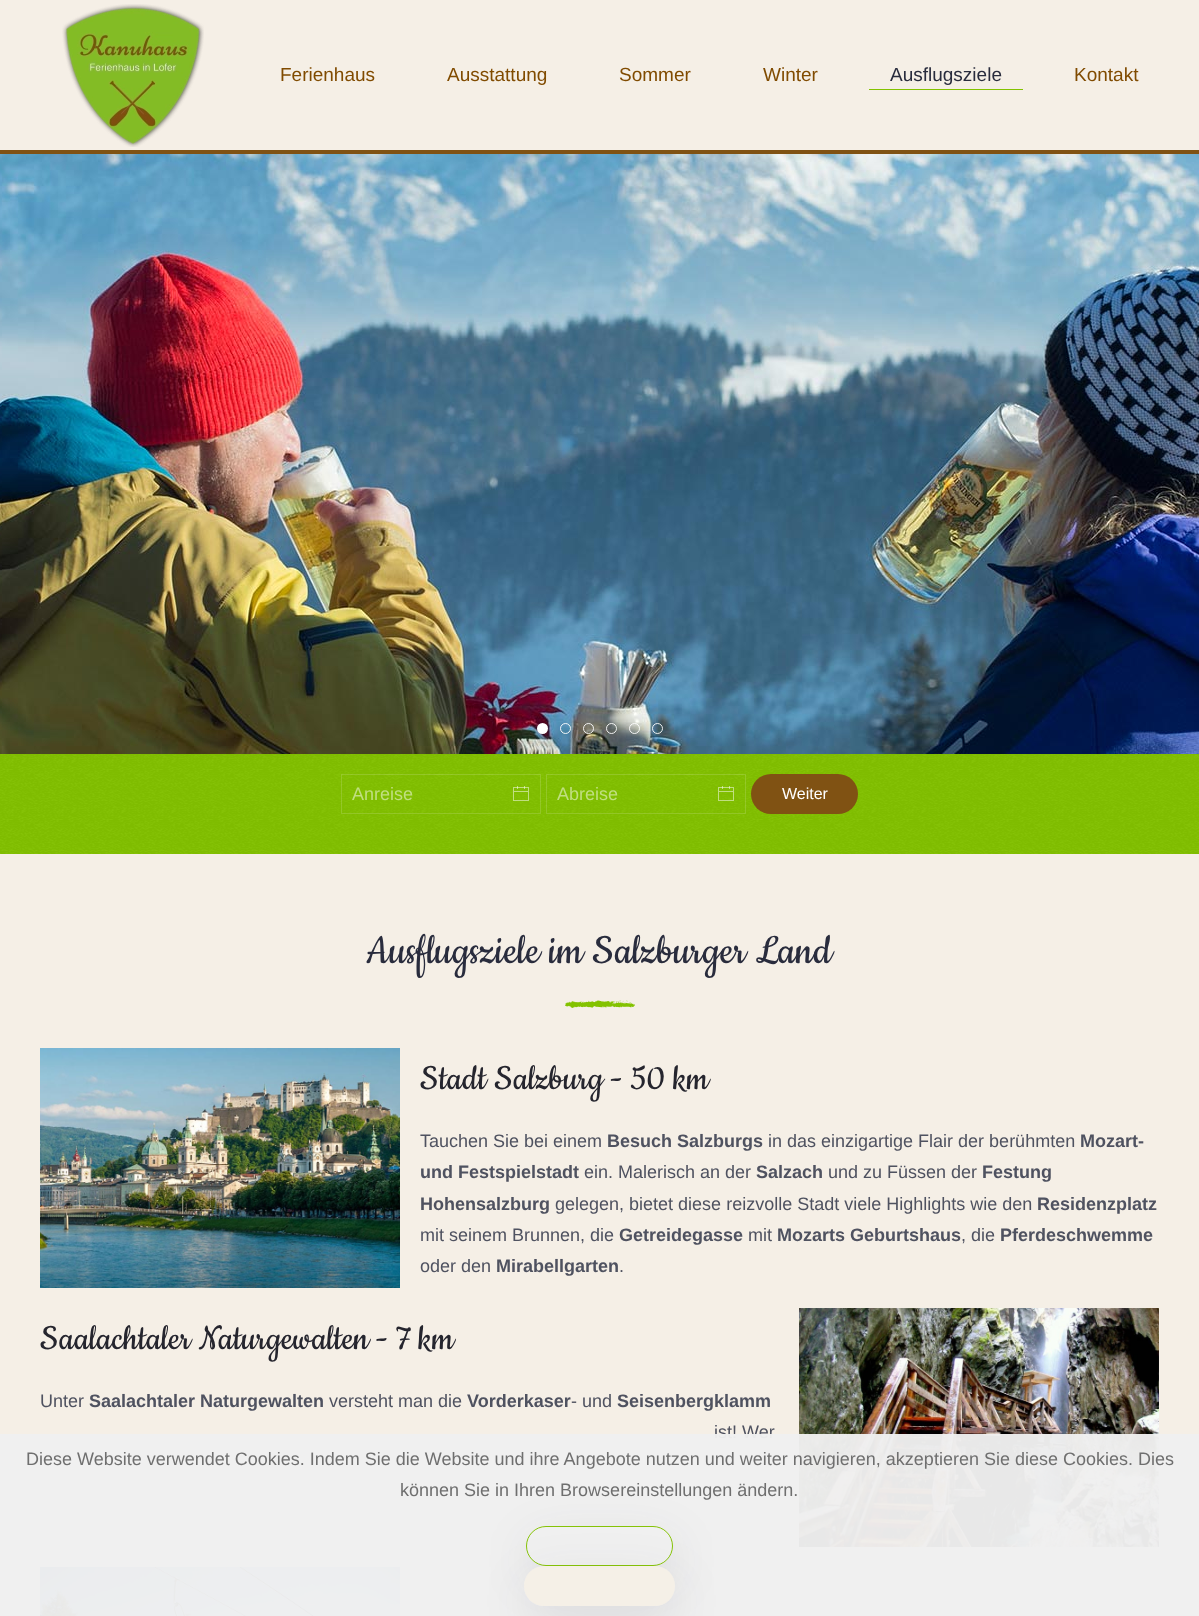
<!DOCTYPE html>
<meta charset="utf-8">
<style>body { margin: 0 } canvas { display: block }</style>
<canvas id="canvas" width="1199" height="1616"></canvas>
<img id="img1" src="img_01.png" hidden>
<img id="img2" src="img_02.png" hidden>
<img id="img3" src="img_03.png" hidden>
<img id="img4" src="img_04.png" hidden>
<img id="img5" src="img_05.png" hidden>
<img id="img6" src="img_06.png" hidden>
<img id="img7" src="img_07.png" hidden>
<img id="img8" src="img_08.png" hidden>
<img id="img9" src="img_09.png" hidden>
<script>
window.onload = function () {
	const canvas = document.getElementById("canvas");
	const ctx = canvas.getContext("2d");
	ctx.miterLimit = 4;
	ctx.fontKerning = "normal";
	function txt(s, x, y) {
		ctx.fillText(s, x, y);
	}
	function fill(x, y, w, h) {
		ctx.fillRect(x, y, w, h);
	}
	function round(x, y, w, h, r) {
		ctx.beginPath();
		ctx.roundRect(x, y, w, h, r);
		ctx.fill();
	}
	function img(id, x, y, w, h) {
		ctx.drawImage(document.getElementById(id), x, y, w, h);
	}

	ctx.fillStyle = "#F5EFE6";
	fill(0, 0, 1199, 1616);
	ctx.fillStyle = "#805213";
	fill(0, 150, 1199, 4);
	img("img1", 62, 4, 142, 143);
	ctx.fillStyle = "#83C200";
	fill(869, 89, 154, 1);
	img("img2", 0, 154, 1199, 600);
	ctx.fillStyle = "#FFFFFF";
	ctx.beginPath();
	ctx.arc(542.5, 728.5, 5.5, 0, Math.PI * 2);
	ctx.fill();
	ctx.beginPath();
	ctx.arc(565.5, 728.5, 5, 0, Math.PI * 2);
	ctx.strokeStyle = "rgba(255, 255, 255, 0.9)";
	ctx.stroke();
	ctx.beginPath();
	ctx.arc(588.5, 728.5, 5, 0, Math.PI * 2);
	ctx.stroke();
	ctx.beginPath();
	ctx.arc(611.5, 728.5, 5, 0, Math.PI * 2);
	ctx.stroke();
	ctx.beginPath();
	ctx.arc(634.5, 728.5, 5, 0, Math.PI * 2);
	ctx.stroke();
	ctx.beginPath();
	ctx.arc(657.5, 728.5, 5, 0, Math.PI * 2);
	ctx.stroke();
	ctx.fillStyle = "#83C200";
	fill(0, 754, 1199, 100);
	img("img3", 0, 754, 1199, 100);
	ctx.strokeStyle = "rgba(255, 255, 255, 0.15)";
	ctx.strokeRect(341.5, 774.5, 199, 39);
	img("img4", 513, 786, 16, 15);
	ctx.strokeRect(546.5, 774.5, 199, 39);
	img("img5", 718, 786, 16, 15);
	ctx.fillStyle = "#805213";
	round(751, 774, 107, 40, 20);
	img("img6", 565, 1000, 70, 8);
	img("img7", 40, 1048, 360, 240);
	img("img8", 799, 1308, 360, 239);
	img("img9", 40, 1567, 360, 49);
	ctx.font = "19px Liberation Sans";
	ctx.fillStyle = "#804B00";
	txt("Ferienhaus", 280, 81);
	txt("Ausstattung", 447, 81);
	txt("Sommer", 619, 81);
	txt("Winter", 763, 81);
	ctx.fillStyle = "#292C3D";
	txt("Ausflugsziele", 890, 81);
	ctx.fillStyle = "#804B00";
	txt("Kontakt", 1074, 81);
	ctx.font = "18px Liberation Sans";
	ctx.fillStyle = "#C0DF80";
	txt("Anreise", 352, 800);
	txt("Abreise", 557, 800);
	ctx.font = "16px Liberation Sans";
	ctx.fillStyle = "#FFFFFF";
	txt("Weiter", 782, 799);
	ctx.font = "47px Cookie";
	ctx.fillStyle = "#292C3D";
	txt("Ausflugsziele im Salzburger Land", 366, 963);
	ctx.font = "40px Cookie";
	ctx.fillStyle = "#25252E";
	txt("Stadt Salzburg - 50 km", 420, 1089);
	ctx.font = "18px Liberation Sans";
	ctx.fillStyle = "#4F5260";
	txt("Tauchen Sie bei einem", 420, 1147);
	ctx.font = "bold 18px Liberation Sans";
	txt("Besuch Salzburgs", 607, 1147);
	ctx.font = "18px Liberation Sans";
	txt("in das einzigartige Flair der berühmten", 768, 1147);
	ctx.font = "bold 18px Liberation Sans";
	txt("Mozart-", 1080, 1147);
	txt("und Festspielstadt", 420, 1178);
	ctx.font = "18px Liberation Sans";
	txt("ein. Malerisch an der", 584, 1178);
	ctx.font = "bold 18px Liberation Sans";
	txt("Salzach", 756, 1178);
	ctx.font = "18px Liberation Sans";
	txt("und zu Füssen der", 828, 1178);
	ctx.font = "bold 18px Liberation Sans";
	txt("Festung", 982, 1178);
	txt("Hohensalzburg", 420, 1210);
	ctx.font = "18px Liberation Sans";
	txt("gelegen, bietet diese reizvolle Stadt viele Highlights wie den", 555, 1210);
	ctx.font = "bold 18px Liberation Sans";
	txt("Residenzplatz", 1037, 1210);
	ctx.font = "18px Liberation Sans";
	txt("mit seinem Brunnen, die", 420, 1241);
	ctx.font = "bold 18px Liberation Sans";
	txt("Getreidegasse", 619, 1241);
	ctx.font = "18px Liberation Sans";
	txt("mit", 748, 1241);
	ctx.font = "bold 18px Liberation Sans";
	txt("Mozarts Geburtshaus", 777, 1241);
	ctx.font = "18px Liberation Sans";
	txt(", die", 961, 1241);
	ctx.font = "bold 18px Liberation Sans";
	txt("Pferdeschwemme", 1000, 1241);
	ctx.font = "18px Liberation Sans";
	txt("oder den", 420, 1272);
	ctx.font = "bold 18px Liberation Sans";
	txt("Mirabellgarten", 496, 1272);
	ctx.font = "18px Liberation Sans";
	txt(".", 619, 1272);
	ctx.font = "40px Cookie";
	ctx.fillStyle = "#25252E";
	txt("Saalachtaler Naturgewalten - 7 km", 40, 1349);
	ctx.font = "18px Liberation Sans";
	ctx.fillStyle = "#4F5260";
	txt("Unter", 40, 1407);
	ctx.font = "bold 18px Liberation Sans";
	txt("Saalachtaler Naturgewalten", 89, 1407);
	ctx.font = "18px Liberation Sans";
	txt("versteht man die", 329, 1407);
	ctx.font = "bold 18px Liberation Sans";
	txt("Vorderkaser", 467, 1407);
	ctx.font = "18px Liberation Sans";
	txt("- und", 571, 1407);
	ctx.font = "bold 18px Liberation Sans";
	txt("Seisenbergklamm", 617, 1407);
	ctx.font = "18px Liberation Sans";
	txt("ist! Wer", 714, 1438);
	ctx.fillStyle = "rgba(240, 240, 240, 0.97)";
	fill(0, 1434, 1199, 182);
	ctx.fillStyle = "#6F6F6F";
	txt("Diese Website verwendet Cookies. Indem Sie die Website und ihre Angebote nutzen und weiter navigieren, akzeptieren Sie diese Cookies. Dies", 26, 1465);
	txt("können Sie in Ihren Browsereinstellungen ändern.", 400, 1496);
	ctx.save();
	ctx.beginPath();
	ctx.moveTo(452, 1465);
	ctx.lineTo(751, 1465);
	ctx.lineTo(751, 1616);
	ctx.lineTo(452, 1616);
	ctx.closePath();
	ctx.moveTo(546, 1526);
	ctx.lineTo(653, 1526);
	ctx.bezierCurveTo(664, 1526, 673, 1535, 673, 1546);
	ctx.bezierCurveTo(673, 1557, 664, 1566, 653, 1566);
	ctx.lineTo(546, 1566);
	ctx.bezierCurveTo(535, 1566, 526, 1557, 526, 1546);
	ctx.bezierCurveTo(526, 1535, 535, 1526, 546, 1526);
	ctx.closePath();
	ctx.clip("evenodd");
	ctx.fillStyle = "rgba(41, 44, 61, 0.1)";
	ctx.filter = "blur(25px)";
	ctx.beginPath();
	ctx.roundRect(528, 1541, 147, 40, 20);
	ctx.fill();
	ctx.filter = "none";
	ctx.restore();
	ctx.beginPath();
	ctx.roundRect(526.5, 1526.5, 146, 39, 19.5);
	ctx.strokeStyle = "#86C307";
	ctx.stroke();
	ctx.save();
	ctx.beginPath();
	ctx.moveTo(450, 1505);
	ctx.lineTo(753, 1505);
	ctx.lineTo(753, 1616);
	ctx.lineTo(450, 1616);
	ctx.closePath();
	ctx.moveTo(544, 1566);
	ctx.lineTo(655, 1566);
	ctx.bezierCurveTo(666, 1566, 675, 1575, 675, 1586);
	ctx.bezierCurveTo(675, 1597, 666, 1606, 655, 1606);
	ctx.lineTo(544, 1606);
	ctx.bezierCurveTo(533, 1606, 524, 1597, 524, 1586);
	ctx.bezierCurveTo(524, 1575, 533, 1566, 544, 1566);
	ctx.closePath();
	ctx.clip("evenodd");
	ctx.fillStyle = "rgba(41, 44, 61, 0.1)";
	ctx.filter = "blur(25px)";
	ctx.beginPath();
	ctx.roundRect(526, 1581, 151, 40, 20);
	ctx.fill();
	ctx.filter = "none";
	ctx.restore();
	ctx.fillStyle = "rgba(245, 239, 230, 0.97)";
	round(524, 1566, 151, 40, 20);
};
</script>
